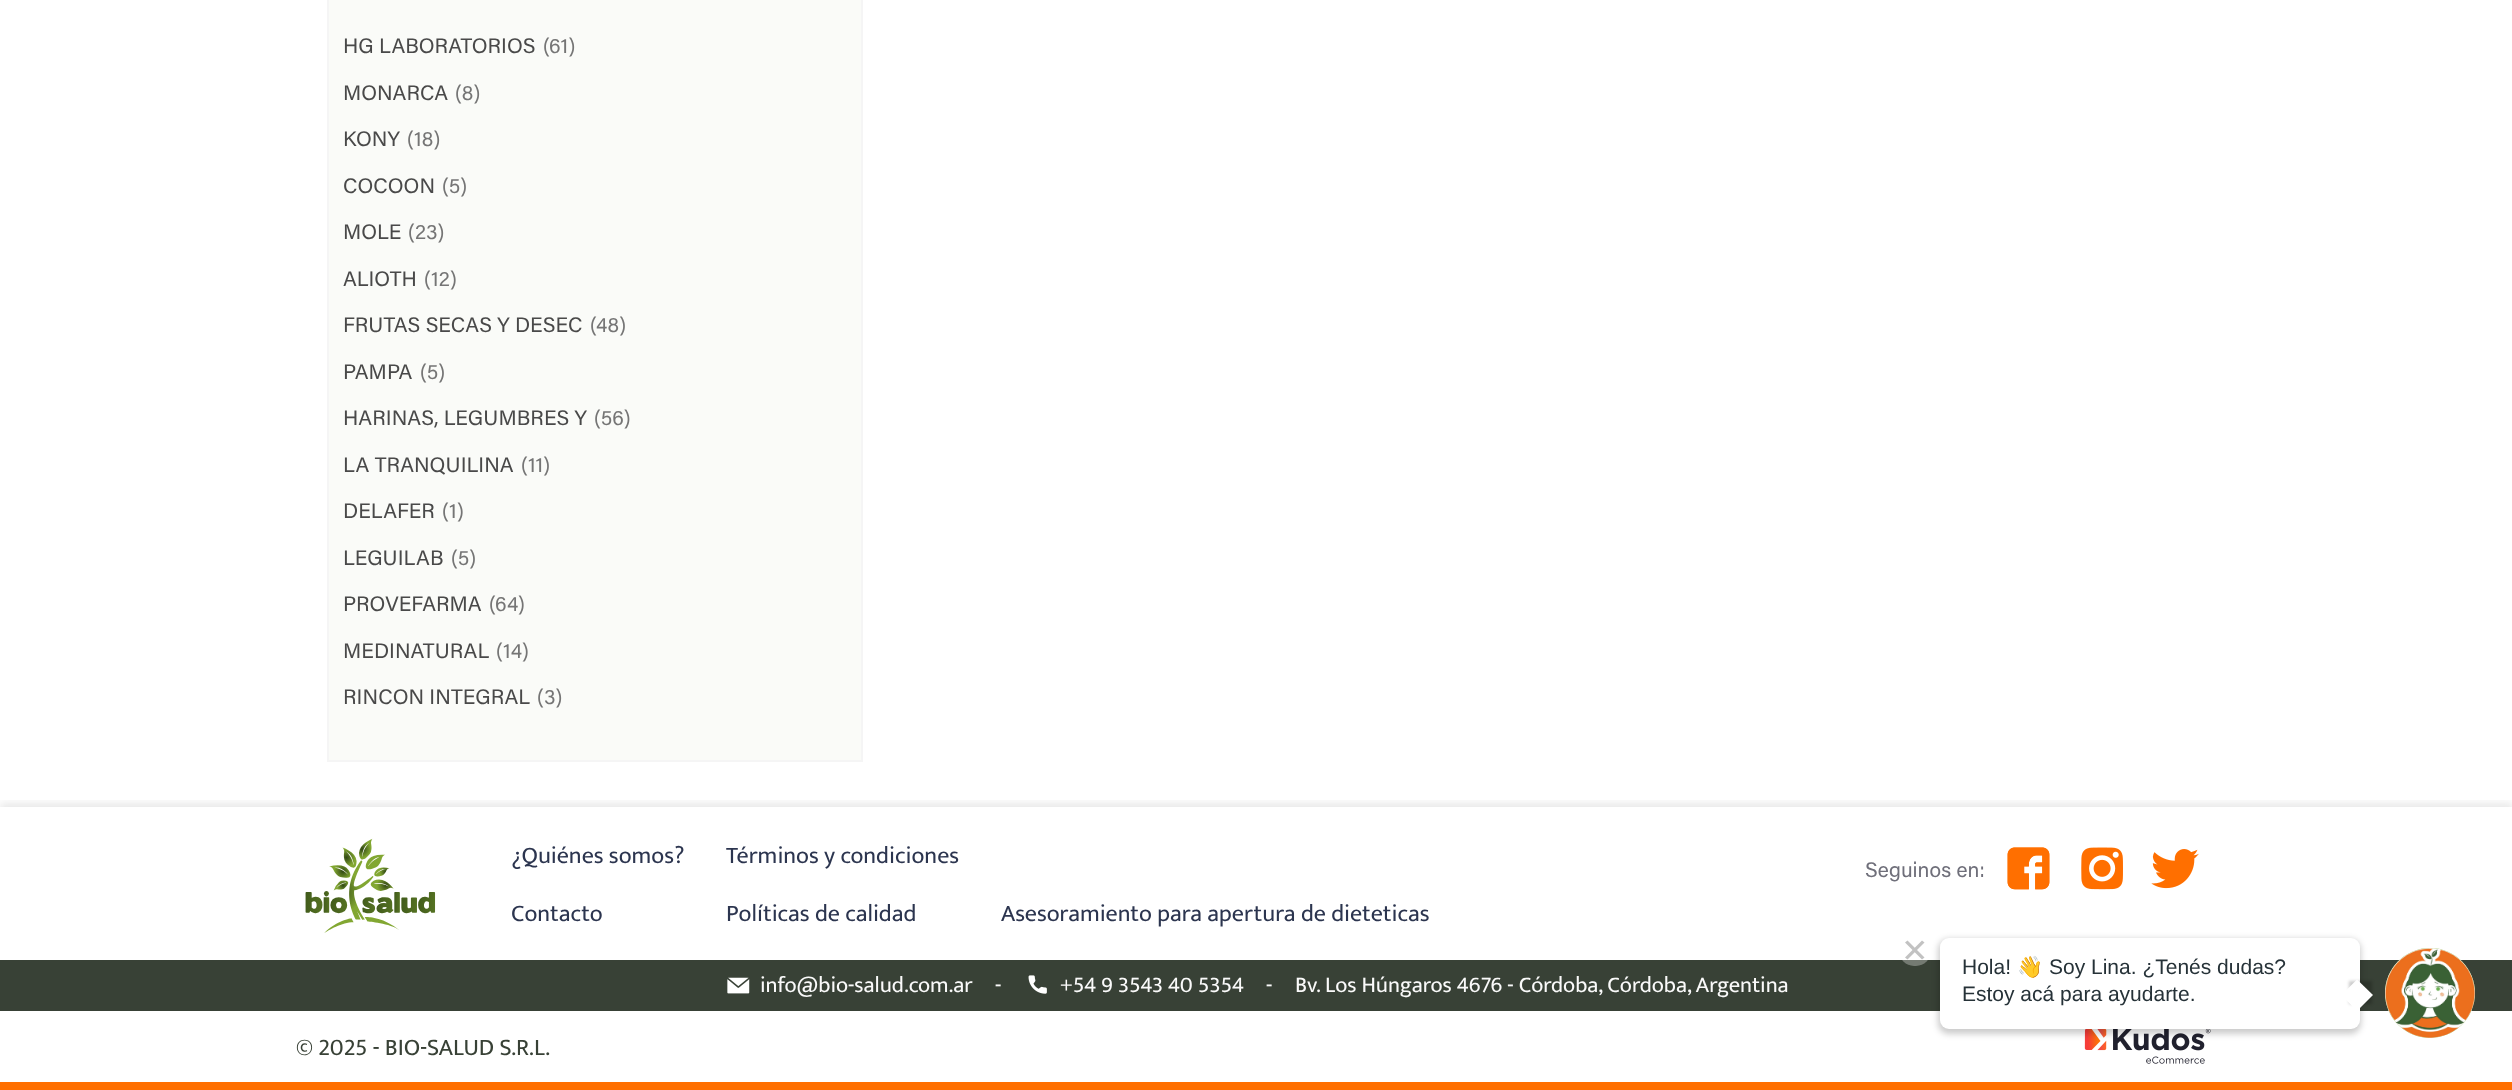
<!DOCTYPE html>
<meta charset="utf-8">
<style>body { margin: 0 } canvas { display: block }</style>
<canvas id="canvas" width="2512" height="1090"></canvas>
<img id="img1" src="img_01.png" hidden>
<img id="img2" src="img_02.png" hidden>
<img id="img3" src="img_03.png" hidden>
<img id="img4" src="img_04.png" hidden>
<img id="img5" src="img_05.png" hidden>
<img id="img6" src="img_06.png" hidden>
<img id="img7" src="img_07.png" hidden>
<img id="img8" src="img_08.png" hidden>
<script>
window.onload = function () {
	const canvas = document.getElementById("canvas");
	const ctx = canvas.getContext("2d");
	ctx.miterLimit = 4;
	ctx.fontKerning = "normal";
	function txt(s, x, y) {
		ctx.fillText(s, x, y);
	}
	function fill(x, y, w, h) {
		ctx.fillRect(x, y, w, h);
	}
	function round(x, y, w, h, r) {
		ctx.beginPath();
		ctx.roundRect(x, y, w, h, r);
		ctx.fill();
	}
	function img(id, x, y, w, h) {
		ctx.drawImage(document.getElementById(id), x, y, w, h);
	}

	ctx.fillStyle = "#FFFFFF";
	fill(0, 0, 2512, 1090);
	ctx.fillStyle = "#FAFBF8";
	ctx.beginPath();
	ctx.rect(328, -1, 534, 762);
	ctx.fill();
	ctx.strokeStyle = "#F5F5F5";
	ctx.lineWidth = 2;
	ctx.stroke();
	ctx.save();
	ctx.beginPath();
	ctx.rect(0, 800, 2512, 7);
	ctx.clip();
	ctx.fillStyle = "rgba(0, 0, 0, 0.09)";
	ctx.filter = "blur(4.5px)";
	ctx.beginPath();
	ctx.rect(0, 803, 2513, 283);
	ctx.fill();
	ctx.filter = "none";
	ctx.restore();
	ctx.fillStyle = "#FF6F00";
	fill(0, 1082, 2512, 8);
	img("img1", 305, 838, 131, 95);
	img("img2", 2007, 847, 43, 43);
	img("img3", 2081, 847, 42, 43);
	img("img4", 2151, 849, 48, 40);
	ctx.fillStyle = "#384136";
	fill(0, 960, 2512, 51);
	img("img5", 727, 977, 23, 17);
	img("img6", 1028, 975, 19, 19);
	img("img7", 2084, 1029, 127, 35);
	ctx.fillStyle = "#82A732";
	ctx.beginPath();
	ctx.arc(2430, 993, 45, 0, Math.PI * 2);
	ctx.fill();
	ctx.fillStyle = "rgba(0, 0, 0, 0.2)";
	ctx.filter = "blur(3px)";
	ctx.beginPath();
	ctx.roundRect(1938, 939, 423, 95, 11);
	ctx.fill();
	ctx.filter = "none";
	ctx.fillStyle = "rgba(255, 255, 255, 0.3)";
	round(1899, 935, 32, 31, 15);
	ctx.fillStyle = "#C2C2C2";
	ctx.beginPath();
	ctx.moveTo(1922, 940.5);
	ctx.lineTo(1924.5, 942.5);
	ctx.lineTo(1907.5, 959.5);
	ctx.lineTo(1905, 957.5);
	ctx.closePath();
	ctx.fill();
	ctx.beginPath();
	ctx.moveTo(1905, 942.5);
	ctx.lineTo(1907.5, 940.5);
	ctx.lineTo(1924.5, 957.5);
	ctx.lineTo(1922, 959.5);
	ctx.closePath();
	ctx.fill();
	ctx.fillStyle = "#FFFFFF";
	round(1940, 938, 420, 91, 9);
	ctx.fillStyle = "rgba(0, 0, 0, 0.2)";
	ctx.filter = "blur(1.5px)";
	ctx.beginPath();
	ctx.rect(2349, 981, 23, 23);
	ctx.fill();
	ctx.filter = "none";
	ctx.fillStyle = "#FFFFFF";
	ctx.beginPath();
	ctx.moveTo(2357, 979.5);
	ctx.lineTo(2373, 995);
	ctx.lineTo(2357, 1011);
	ctx.lineTo(2341.5, 995);
	ctx.closePath();
	ctx.fill();
	img("img8", 2385, 948, 90, 90);
	ctx.font = "21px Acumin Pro";
	ctx.fillStyle = "#494949";
	txt("HG LABORATORIOS", 343, 53);
	ctx.fillStyle = "#757575";
	txt("(", 543, 53);
	txt("61)", 549, 53);
	ctx.fillStyle = "#494949";
	txt("MONARCA", 343, 100);
	ctx.fillStyle = "#757575";
	txt("(8)", 455, 100);
	ctx.fillStyle = "#494949";
	txt("KONY", 343, 146);
	ctx.fillStyle = "#757575";
	txt("(18)", 407, 146);
	ctx.fillStyle = "#494949";
	txt("COCOON", 343, 193);
	ctx.fillStyle = "#757575";
	txt("(5)", 442, 193);
	ctx.fillStyle = "#494949";
	txt("MOLE", 343, 239);
	ctx.fillStyle = "#757575";
	txt("(23)", 408, 239);
	ctx.fillStyle = "#494949";
	txt("ALIOTH", 343, 286);
	ctx.fillStyle = "#757575";
	txt("(12)", 424, 286);
	ctx.fillStyle = "#494949";
	txt("FRUTAS SECAS Y DESEC", 343, 332);
	ctx.fillStyle = "#757575";
	txt("(", 590, 332);
	txt("48)", 596, 332);
	ctx.fillStyle = "#494949";
	txt("PAMPA", 343, 379);
	ctx.fillStyle = "#757575";
	txt("(5)", 420, 379);
	ctx.fillStyle = "#494949";
	txt("HARINAS, LEGUMBRES Y", 343, 425);
	ctx.fillStyle = "#757575";
	txt("(56)", 594, 425);
	ctx.fillStyle = "#494949";
	txt("LA TRANQUILINA", 343, 472);
	ctx.fillStyle = "#757575";
	txt("(11)", 521, 472);
	ctx.fillStyle = "#494949";
	txt("DELAFER", 343, 518);
	ctx.fillStyle = "#757575";
	txt("(1)", 442, 518);
	ctx.fillStyle = "#494949";
	txt("LEGUILAB", 343, 565);
	ctx.fillStyle = "#757575";
	txt("(5)", 451, 565);
	ctx.fillStyle = "#494949";
	txt("PROVEFARMA", 343, 611);
	ctx.fillStyle = "#757575";
	txt("(", 489, 611);
	txt("64)", 495, 611);
	ctx.fillStyle = "#494949";
	txt("MEDINATURAL", 343, 658);
	ctx.fillStyle = "#757575";
	txt("(14)", 496, 658);
	ctx.fillStyle = "#494949";
	txt("RINCON INTEGRAL", 343, 704);
	ctx.fillStyle = "#757575";
	txt("(", 537, 704);
	txt("3)", 544, 704);
	ctx.font = "24px Mukta";
	ctx.fillStyle = "#2C354F";
	txt("¿Quiénes somos?", 511, 863);
	txt("Términos y condiciones", 726, 863);
	txt("Contacto", 511, 921);
	txt("Políticas de calidad", 726, 921);
	txt("Asesoramiento para apertura de dieteticas", 1001, 921);
	ctx.font = "21px Acumin Pro";
	ctx.fillStyle = "#6F6F7A";
	txt("Seguinos en:", 1865, 877);
	ctx.font = "22.5px Mukta";
	ctx.fillStyle = "#FAFAFA";
	txt("info@bio-salud.com.ar", 760, 992);
	txt("-", 995, 992);
	txt("+54 9 3543 40 5354", 1060, 992);
	txt("-", 1266, 992);
	txt("Bv. Los Húngaros 4676 - Córdoba, Córdoba, Argentina", 1295, 992);
	ctx.font = "24px Mukta";
	ctx.fillStyle = "#384136";
	txt("© 2025 - BIO-SALUD S.R.L.", 296, 1055);
	ctx.font = "21px Liberation Sans";
	ctx.fillStyle = "#263238";
	txt("Hola!", 1962, 974);
	ctx.font = "21px Noto Color Emoji";
	txt("👋", 2017, 974);
	ctx.font = "21px Liberation Sans";
	txt("Soy Lina. ¿Tenés dudas?", 2049, 974);
	txt("Estoy acá para ayudarte.", 1962, 1001);
};
</script>
